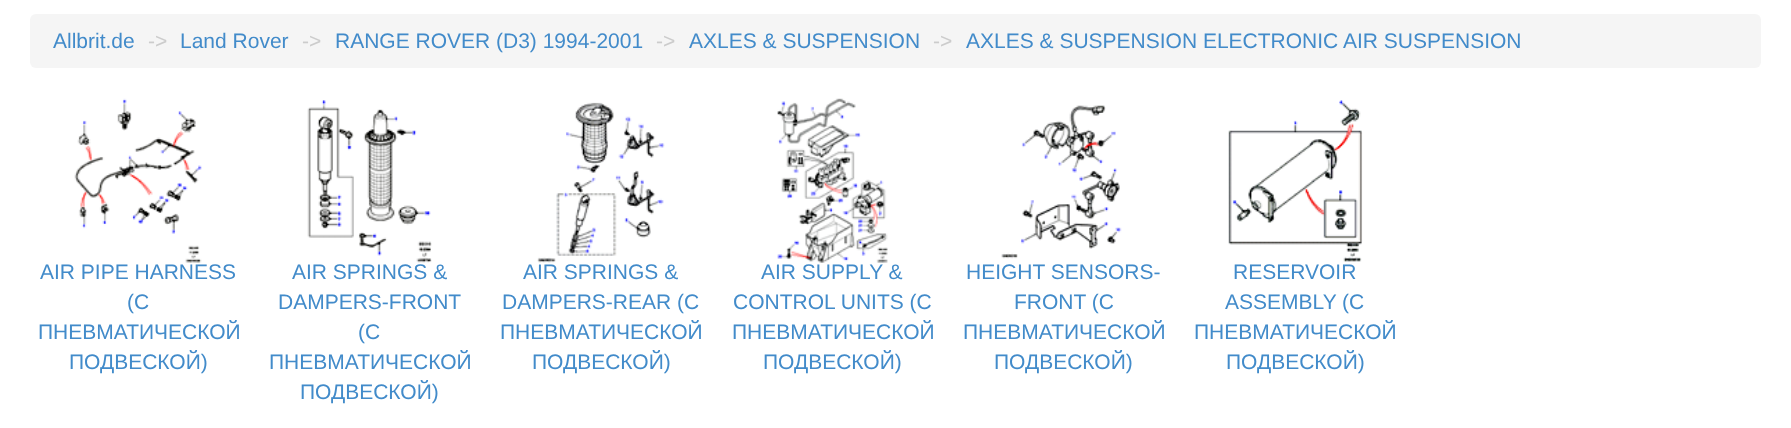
<!DOCTYPE html>
<meta charset="utf-8">
<style>body { margin: 0 } canvas { display: block }</style>
<canvas id="canvas" width="1791" height="428"></canvas>
<img id="img1" src="img_01.png" hidden>
<img id="img2" src="img_02.png" hidden>
<img id="img3" src="img_03.png" hidden>
<img id="img4" src="img_04.png" hidden>
<img id="img5" src="img_05.png" hidden>
<img id="img6" src="img_06.png" hidden>
<script>
window.onload = function () {
	const canvas = document.getElementById("canvas");
	const ctx = canvas.getContext("2d");
	ctx.miterLimit = 4;
	ctx.fontKerning = "normal";
	function txt(s, x, y) {
		ctx.fillText(s, x, y);
	}
	function fill(x, y, w, h) {
		ctx.fillRect(x, y, w, h);
	}
	function round(x, y, w, h, r) {
		ctx.beginPath();
		ctx.roundRect(x, y, w, h, r);
		ctx.fill();
	}
	function img(id, x, y, w, h) {
		ctx.drawImage(document.getElementById(id), x, y, w, h);
	}

	ctx.fillStyle = "#FFFFFF";
	fill(0, 0, 1791, 428);
	ctx.fillStyle = "#F5F5F5";
	round(30, 14, 1731, 54, 6);
	img("img1", 74, 98, 128, 165);
	img("img2", 307, 100, 125, 163);
	img("img3", 537, 102, 128, 161);
	img("img4", 777, 98, 111, 165);
	img("img5", 1001, 105, 121, 154);
	img("img6", 1228, 100, 135, 162);
	ctx.font = "21px Liberation Sans";
	ctx.fillStyle = "#428BCA";
	txt("Allbrit.de", 53, 48);
	ctx.fillStyle = "#CCCCCC";
	txt("->", 148, 48);
	ctx.fillStyle = "#428BCA";
	txt("Land Rover", 180, 48);
	ctx.fillStyle = "#CCCCCC";
	txt("->", 302, 48);
	ctx.fillStyle = "#428BCA";
	txt("RANGE ROVER (D3) 1994-2001", 335, 48);
	ctx.fillStyle = "#CCCCCC";
	txt("->", 656, 48);
	ctx.fillStyle = "#428BCA";
	txt("AXLES & SUSPENSION", 689, 48);
	ctx.fillStyle = "#CCCCCC";
	txt("->", 933, 48);
	ctx.fillStyle = "#428BCA";
	txt("AXLES & SUSPENSION ELECTRONIC AIR SUSPENSION", 966, 48);
	txt("AIR PIPE HARNESS", 40, 279);
	txt("(С", 127, 309);
	txt("ПНЕВМАТИЧЕСКОЙ", 38, 339);
	txt("ПОДВЕСКОЙ)", 69, 369);
	txt("AIR SPRINGS &", 292, 279);
	txt("DAMPERS-FRONT", 278, 309);
	txt("(С", 358, 339);
	txt("ПНЕВМАТИЧЕСКОЙ", 269, 369);
	txt("ПОДВЕСКОЙ)", 300, 399);
	txt("AIR SPRINGS &", 523, 279);
	txt("DAMPERS-REAR (С", 502, 309);
	txt("ПНЕВМАТИЧЕСКОЙ", 500, 339);
	txt("ПОДВЕСКОЙ)", 532, 369);
	txt("AIR SUPPLY &", 761, 279);
	txt("CONTROL UNITS (С", 733, 309);
	txt("ПНЕВМАТИЧЕСКОЙ", 732, 339);
	txt("ПОДВЕСКОЙ)", 763, 369);
	txt("HEIGHT SENSORS-", 966, 279);
	txt("FRONT (С", 1014, 309);
	txt("ПНЕВМАТИЧЕСКОЙ", 963, 339);
	txt("ПОДВЕСКОЙ)", 994, 369);
	txt("RESERVOIR", 1233, 279);
	txt("ASSEMBLY (С", 1225, 309);
	txt("ПНЕВМАТИЧЕСКОЙ", 1194, 339);
	txt("ПОДВЕСКОЙ)", 1226, 369);
};
</script>
